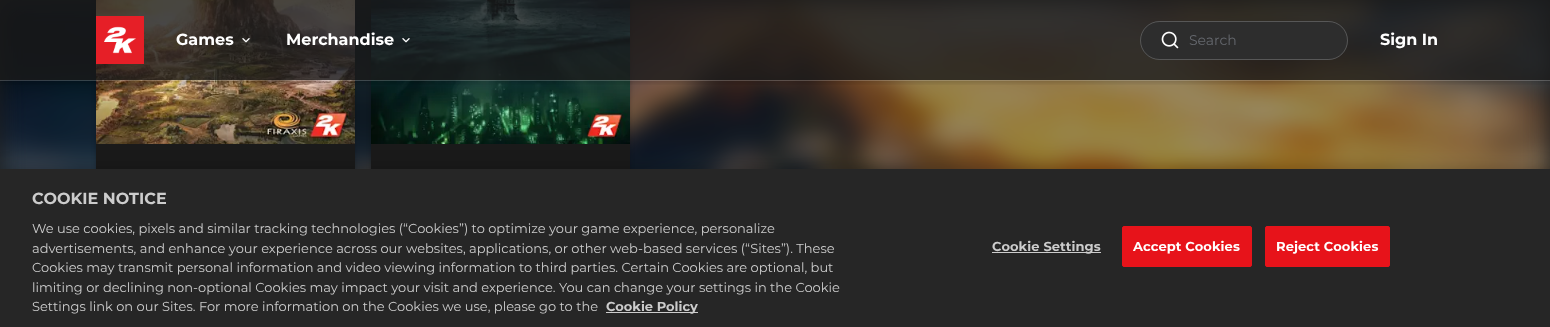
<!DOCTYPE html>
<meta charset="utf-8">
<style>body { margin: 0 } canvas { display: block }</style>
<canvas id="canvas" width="1550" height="327"></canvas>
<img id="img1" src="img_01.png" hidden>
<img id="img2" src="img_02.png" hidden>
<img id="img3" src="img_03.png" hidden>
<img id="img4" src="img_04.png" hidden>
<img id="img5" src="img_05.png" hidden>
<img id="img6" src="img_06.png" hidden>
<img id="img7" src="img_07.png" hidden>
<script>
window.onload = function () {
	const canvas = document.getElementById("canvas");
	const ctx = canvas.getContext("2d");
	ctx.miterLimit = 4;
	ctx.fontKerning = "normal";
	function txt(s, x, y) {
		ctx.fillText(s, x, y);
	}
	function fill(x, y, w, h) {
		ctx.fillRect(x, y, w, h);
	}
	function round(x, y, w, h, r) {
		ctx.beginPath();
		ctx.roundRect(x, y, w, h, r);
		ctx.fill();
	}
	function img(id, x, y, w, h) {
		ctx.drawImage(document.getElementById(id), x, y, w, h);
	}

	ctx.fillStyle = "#1B1B1B";
	fill(0, 0, 1550, 327);
	img("img1", 0, 0, 1550, 169);
	ctx.fillStyle = "rgba(0, 0, 0, 0.24)";
	ctx.filter = "blur(2px)";
	ctx.beginPath();
	ctx.roundRect(96, -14, 259, 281, 8);
	ctx.fill();
	ctx.filter = "none";
	img("img2", 96, 0, 259, 144);
	ctx.fillStyle = "#1A1A1A";
	fill(96, 144, 259, 25);
	ctx.fillStyle = "rgba(0, 0, 0, 0.24)";
	ctx.filter = "blur(2px)";
	ctx.beginPath();
	ctx.roundRect(371, -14, 259, 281, 8);
	ctx.fill();
	ctx.filter = "none";
	img("img3", 371, 0, 259, 144);
	ctx.fillStyle = "#1A1A1A";
	fill(371, 144, 259, 25);
	ctx.save();
	ctx.beginPath();
	ctx.rect(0, 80, 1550, 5);
	ctx.clip();
	ctx.fillStyle = "rgba(0, 0, 0, 0.15)";
	ctx.filter = "blur(2px)";
	ctx.beginPath();
	ctx.rect(0, 3, 1550, 80);
	ctx.fill();
	ctx.filter = "none";
	ctx.restore();
	ctx.fillStyle = "rgba(26, 26, 26, 0.8)";
	fill(0, 0, 1550, 80);
	ctx.strokeStyle = "rgba(255, 255, 255, 0.2)";
	ctx.strokeRect(-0.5, -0.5, 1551, 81);
	img("img4", 96, 16, 48, 48);
	img("img5", 242, 38, 8, 5);
	img("img6", 402, 38, 8, 5);
	ctx.fillStyle = "#2D2D2D";
	round(1140, 21, 208, 39, 19.5);
	ctx.beginPath();
	ctx.roundRect(1140.5, 21.5, 207, 38, 19);
	ctx.stroke();
	img("img7", 1161, 31, 18, 18);
	ctx.fillStyle = "rgba(0, 0, 0, 0.2)";
	ctx.filter = "blur(9px)";
	ctx.beginPath();
	ctx.rect(0, 169, 1550, 158);
	ctx.fill();
	ctx.filter = "none";
	ctx.fillStyle = "#262626";
	fill(0, 169, 1550, 158);
	ctx.fillStyle = "#CCCCCC";
	fill(606, 312, 92, 1);
	fill(992, 252, 109, 1);
	ctx.fillStyle = "#E7131A";
	ctx.beginPath();
	ctx.roundRect(1122.5, 226.5, 129, 40, 1.5);
	ctx.fill();
	ctx.strokeStyle = "#E7131A";
	ctx.stroke();
	ctx.beginPath();
	ctx.roundRect(1265.5, 226.5, 124, 40, 1.5);
	ctx.fill();
	ctx.stroke();
	ctx.font = "100 16px Montserrat";
	ctx.fillStyle = "#FFFFFF";
	txt("Games", 176, 45);
	txt("Merchandise", 286, 45);
	ctx.font = "100 14px 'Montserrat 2'";
	ctx.fillStyle = "#65686E";
	txt("Search", 1189, 45);
	ctx.font = "100 16px Montserrat";
	ctx.fillStyle = "#FFFFFF";
	txt("Sign In", 1380, 45);
	ctx.fillStyle = "#CCCCCC";
	txt("COOKIE NOTICE", 32, 204);
	ctx.font = "100 13px 'Montserrat 2'";
	txt("We use cookies, pixels and similar tracking technologies (“Cookies”) to optimize your game experience, personalize", 32, 233);
	txt("advertisements, and enhance your experience across our websites, applications, or other web-based services (“Sites”). These", 32, 253);
	txt("Cookies may transmit personal information and video viewing information to third parties. Certain Cookies are optional, but", 32, 272);
	txt("limiting or declining non-optional Cookies may impact your visit and experience. You can change your settings in the Cookie", 32, 292);
	txt("Settings link on our Sites. For more information on the Cookies we use, please go to the", 32, 311);
	ctx.font = "100 13px Montserrat";
	txt("Cookie Policy", 606, 311);
	ctx.letterSpacing = "0.1px";
	txt("Cookie Settings", 992, 251);
	ctx.fillStyle = "#FFFFFF";
	txt("Accept Cookies", 1133, 251);
	txt("Reject Cookies", 1276, 251);
};
</script>
